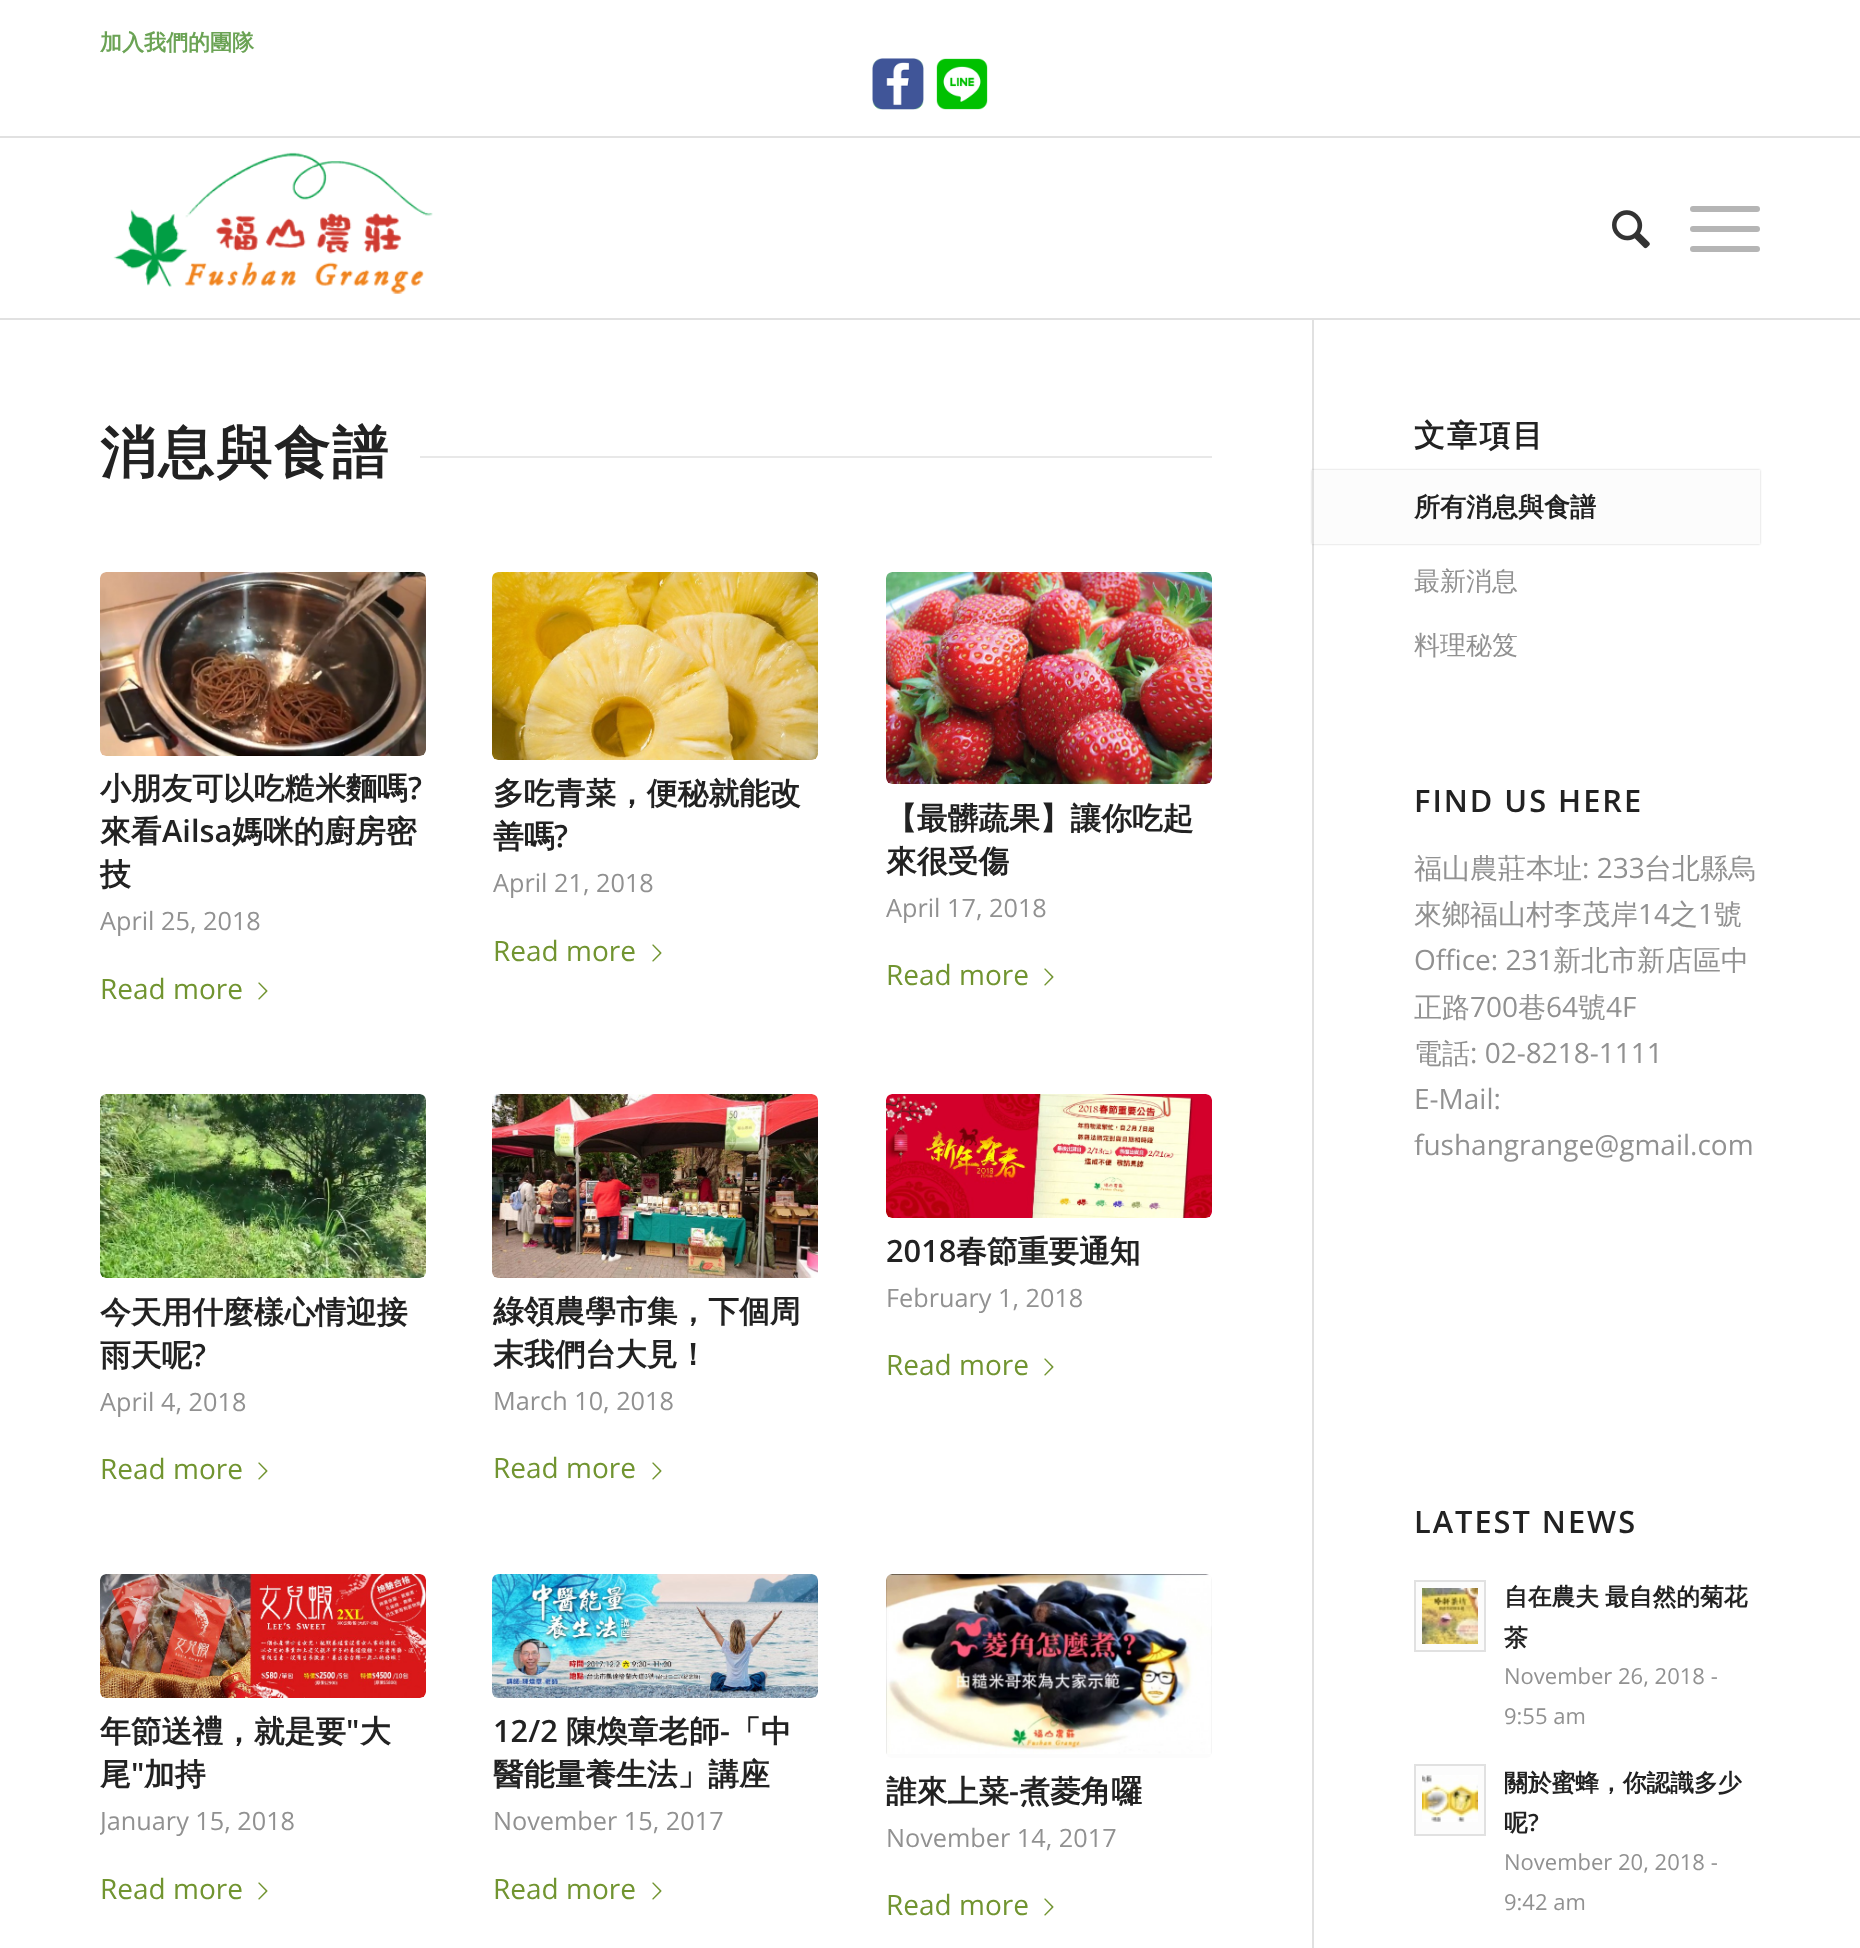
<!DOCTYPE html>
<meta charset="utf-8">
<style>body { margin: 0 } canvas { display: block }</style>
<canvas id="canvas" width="1860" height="1948"></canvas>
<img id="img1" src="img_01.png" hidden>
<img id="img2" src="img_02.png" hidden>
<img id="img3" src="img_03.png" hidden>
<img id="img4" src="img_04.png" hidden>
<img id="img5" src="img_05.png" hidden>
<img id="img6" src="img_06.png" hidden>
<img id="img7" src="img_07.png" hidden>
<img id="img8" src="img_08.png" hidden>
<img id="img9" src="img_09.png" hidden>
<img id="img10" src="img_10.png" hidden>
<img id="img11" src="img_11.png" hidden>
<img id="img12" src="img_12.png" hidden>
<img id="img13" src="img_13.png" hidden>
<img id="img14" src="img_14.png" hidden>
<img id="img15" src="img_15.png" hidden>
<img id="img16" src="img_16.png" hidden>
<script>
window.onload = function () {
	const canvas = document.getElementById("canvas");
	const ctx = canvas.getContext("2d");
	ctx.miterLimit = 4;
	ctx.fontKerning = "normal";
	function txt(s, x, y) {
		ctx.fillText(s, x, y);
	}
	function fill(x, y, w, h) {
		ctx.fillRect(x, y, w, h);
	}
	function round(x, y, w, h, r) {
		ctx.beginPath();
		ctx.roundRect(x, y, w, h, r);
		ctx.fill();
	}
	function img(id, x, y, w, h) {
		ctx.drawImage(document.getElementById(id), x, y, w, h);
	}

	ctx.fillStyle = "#FFFFFF";
	fill(0, 0, 1860, 1948);
	ctx.fillStyle = "#E1E1E1";
	fill(0, 136, 1860, 2);
	img("img1", 872, 58, 52, 52);
	img("img2", 936, 58, 52, 52);
	fill(0, 318, 1860, 2);
	img("img3", 113, 152, 320, 142);
	img("img4", 1612, 210, 38, 39);
	ctx.fillStyle = "#B5B5B5";
	round(1690, 226, 70, 6, 3);
	round(1690, 206, 70, 6, 3);
	round(1690, 246, 70, 6, 3);
	ctx.fillStyle = "#E1E1E1";
	fill(1312, 320, 2, 1628);
	ctx.fillStyle = "#E8E8E8";
	fill(420, 456, 792, 2);
	ctx.fillStyle = "#FCFCFC";
	round(100, 572, 326, 184, 6);
	img("img5", 100, 572, 326, 184);
	img("img6", 258, 982, 10, 18);
	round(492, 572, 326, 188, 6);
	img("img7", 492, 572, 326, 188);
	img("img6", 652, 944, 10, 18);
	round(886, 572, 326, 212, 6);
	img("img8", 886, 572, 326, 212);
	img("img6", 1044, 968, 10, 18);
	round(100, 1094, 326, 184, 6);
	img("img9", 100, 1094, 326, 184);
	img("img6", 258, 1462, 10, 18);
	round(492, 1094, 326, 184, 6);
	img("img10", 492, 1094, 326, 184);
	img("img6", 652, 1462, 10, 18);
	round(886, 1094, 326, 124, 6);
	img("img11", 886, 1094, 326, 124);
	img("img6", 1044, 1358, 10, 18);
	round(100, 1574, 326, 124, 6);
	img("img12", 100, 1574, 326, 124);
	img("img6", 258, 1882, 10, 18);
	round(492, 1574, 326, 124, 6);
	img("img13", 492, 1574, 326, 124);
	img("img6", 652, 1882, 10, 18);
	round(886, 1574, 326, 184, 6);
	img("img14", 886, 1574, 326, 180);
	img("img6", 1044, 1898, 10, 18);
	ctx.save();
	ctx.beginPath();
	ctx.moveTo(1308, 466);
	ctx.lineTo(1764, 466);
	ctx.lineTo(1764, 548);
	ctx.lineTo(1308, 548);
	ctx.closePath();
	ctx.moveTo(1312, 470);
	ctx.lineTo(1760, 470);
	ctx.lineTo(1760, 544);
	ctx.lineTo(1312, 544);
	ctx.closePath();
	ctx.clip("evenodd");
	ctx.fillStyle = "rgba(0, 0, 0, 0.2)";
	ctx.filter = "blur(1px)";
	ctx.beginPath();
	ctx.rect(1312, 470, 448, 74);
	ctx.fill();
	ctx.filter = "none";
	ctx.restore();
	fill(1314, 470, 446, 74);
	ctx.beginPath();
	ctx.rect(1415, 1581, 70, 70);
	ctx.fill();
	ctx.strokeStyle = "#E1E1E1";
	ctx.lineWidth = 2;
	ctx.stroke();
	img("img15", 1422, 1588, 56, 56);
	ctx.beginPath();
	ctx.rect(1415, 1765, 70, 70);
	ctx.fill();
	ctx.stroke();
	img("img16", 1422, 1775, 56, 47);
	ctx.font = "bold 22px WenQuanYi Zen Hei";
	ctx.fillStyle = "#6BA355";
	txt("加入我們的團隊", 100, 50);
	ctx.letterSpacing = "2px";
	ctx.font = "bold 56px WenQuanYi Zen Hei";
	ctx.fillStyle = "#222222";
	txt("消息與食譜", 100, 472);
	ctx.letterSpacing = "0px";
	ctx.font = "bold 30.75px WenQuanYi Zen Hei";
	txt("小朋友可以吃糙米麵嗎", 100, 799);
	ctx.font = "600 30.75px Open Sans";
	txt("?", 408, 799);
	ctx.font = "bold 30.75px WenQuanYi Zen Hei";
	txt("來看", 100, 842);
	ctx.font = "600 30.75px Open Sans";
	txt("Ailsa", 162, 842);
	ctx.font = "bold 30.75px WenQuanYi Zen Hei";
	txt("媽咪的廚房密", 232, 842);
	txt("技", 100, 885);
	ctx.font = "25.25px Open Sans";
	ctx.fillStyle = "#919191";
	txt("April 25, 2018", 100, 930);
	ctx.font = "28px Open Sans";
	ctx.fillStyle = "#719430";
	txt("Read more", 100, 999);
	ctx.font = "bold 30.75px WenQuanYi Zen Hei";
	ctx.fillStyle = "#222222";
	txt("多吃青菜，便秘就能改", 493, 804);
	txt("善嗎", 493, 847);
	ctx.font = "600 30.75px Open Sans";
	txt("?", 554, 847);
	ctx.font = "25.25px Open Sans";
	ctx.fillStyle = "#919191";
	txt("April 21, 2018", 493, 892);
	ctx.font = "28px Open Sans";
	ctx.fillStyle = "#719430";
	txt("Read more", 493, 961);
	ctx.font = "bold 30.75px WenQuanYi Zen Hei";
	ctx.fillStyle = "#222222";
	txt("【最髒蔬果】讓你吃起", 886, 829);
	txt("來很受傷", 886, 872);
	ctx.font = "25.25px Open Sans";
	ctx.fillStyle = "#919191";
	txt("April 17, 2018", 886, 917);
	ctx.font = "28px Open Sans";
	ctx.fillStyle = "#719430";
	txt("Read more", 886, 985);
	ctx.font = "bold 30.75px WenQuanYi Zen Hei";
	ctx.fillStyle = "#222222";
	txt("今天用什麼樣心情迎接", 100, 1323);
	txt("雨天呢", 100, 1366);
	ctx.font = "600 30.75px Open Sans";
	txt("?", 192, 1366);
	ctx.font = "25.25px Open Sans";
	ctx.fillStyle = "#919191";
	txt("April 4, 2018", 100, 1411);
	ctx.font = "28px Open Sans";
	ctx.fillStyle = "#719430";
	txt("Read more", 100, 1479);
	ctx.font = "bold 30.75px WenQuanYi Zen Hei";
	ctx.fillStyle = "#222222";
	txt("綠領農學市集，下個周", 493, 1322);
	txt("末我們台大見！", 493, 1365);
	ctx.font = "25.25px Open Sans";
	ctx.fillStyle = "#919191";
	txt("March 10, 2018", 493, 1410);
	ctx.font = "28px Open Sans";
	ctx.fillStyle = "#719430";
	txt("Read more", 493, 1478);
	ctx.font = "600 30.75px Open Sans";
	ctx.fillStyle = "#222222";
	txt("2018", 886, 1262);
	ctx.font = "bold 30.75px WenQuanYi Zen Hei";
	txt("春節重要通知", 956, 1262);
	ctx.font = "25.25px Open Sans";
	ctx.fillStyle = "#919191";
	txt("February 1, 2018", 886, 1307);
	ctx.font = "28px Open Sans";
	ctx.fillStyle = "#719430";
	txt("Read more", 886, 1375);
	ctx.font = "bold 30.75px WenQuanYi Zen Hei";
	ctx.fillStyle = "#222222";
	txt("年節送禮，就是要", 100, 1742);
	ctx.font = "600 30.75px Open Sans";
	txt("\"", 346, 1742);
	ctx.font = "bold 30.75px WenQuanYi Zen Hei";
	txt("大", 360, 1742);
	txt("尾", 100, 1785);
	ctx.font = "600 30.75px Open Sans";
	txt("\"", 131, 1785);
	ctx.font = "bold 30.75px WenQuanYi Zen Hei";
	txt("加持", 144, 1785);
	ctx.save();
	ctx.beginPath();
	ctx.rect(100, 572, 1112, 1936);
	ctx.clip();
	ctx.font = "25.25px Open Sans";
	ctx.fillStyle = "#919191";
	txt("January 15, 2018", 100, 1830);
	ctx.restore();
	ctx.font = "28px Open Sans";
	ctx.fillStyle = "#719430";
	txt("Read more", 100, 1899);
	ctx.font = "600 30.75px Open Sans";
	ctx.fillStyle = "#222222";
	txt("12/2", 493, 1742);
	ctx.font = "bold 30.75px WenQuanYi Zen Hei";
	txt("陳煥章老師", 566, 1742);
	ctx.font = "600 30.75px Open Sans";
	txt("-", 720, 1742);
	ctx.font = "bold 30.75px WenQuanYi Zen Hei";
	txt("「中", 730, 1742);
	txt("醫能量養生法」講座", 493, 1785);
	ctx.font = "25.25px Open Sans";
	ctx.fillStyle = "#919191";
	txt("November 15, 2017", 493, 1830);
	ctx.font = "28px Open Sans";
	ctx.fillStyle = "#719430";
	txt("Read more", 493, 1899);
	ctx.font = "bold 30.75px WenQuanYi Zen Hei";
	ctx.fillStyle = "#222222";
	txt("誰來上菜", 886, 1802);
	ctx.font = "600 30.75px Open Sans";
	txt("-", 1009, 1802);
	ctx.font = "bold 30.75px WenQuanYi Zen Hei";
	txt("煮菱角囉", 1019, 1802);
	ctx.font = "25.25px Open Sans";
	ctx.fillStyle = "#919191";
	txt("November 14, 2017", 886, 1847);
	ctx.font = "28px Open Sans";
	ctx.fillStyle = "#719430";
	txt("Read more", 886, 1915);
	ctx.letterSpacing = "2px";
	ctx.font = "bold 30.75px WenQuanYi Zen Hei";
	ctx.fillStyle = "#222222";
	txt("文章項目", 1414, 446);
	ctx.letterSpacing = "0px";
	ctx.font = "bold 26px WenQuanYi Zen Hei";
	txt("所有消息與食譜", 1414, 516);
	ctx.font = "500 26px WenQuanYi Zen Hei";
	ctx.fillStyle = "#919191";
	txt("最新消息", 1414, 590);
	txt("料理秘笈", 1414, 654);
	ctx.letterSpacing = "2px";
	ctx.font = "600 30.75px Open Sans";
	ctx.fillStyle = "#222222";
	txt("FIND US HERE", 1414, 812);
	ctx.letterSpacing = "0px";
	ctx.font = "500 28px WenQuanYi Zen Hei";
	ctx.fillStyle = "#919191";
	txt("福山農莊本址", 1414, 878);
	ctx.font = "28px Open Sans";
	txt(": 233", 1582, 878);
	ctx.font = "500 28px WenQuanYi Zen Hei";
	txt("台北縣烏", 1644, 878);
	txt("來鄉福山村李茂岸", 1414, 924);
	ctx.font = "28px Open Sans";
	txt("14", 1638, 924);
	ctx.font = "500 28px WenQuanYi Zen Hei";
	txt("之", 1670, 924);
	ctx.font = "28px Open Sans";
	txt("1", 1698, 924);
	ctx.font = "500 28px WenQuanYi Zen Hei";
	txt("號", 1714, 924);
	ctx.font = "28px Open Sans";
	txt("Office: 231", 1414, 970);
	ctx.font = "500 28px WenQuanYi Zen Hei";
	txt("新北市新店區中", 1553, 970);
	txt("正路", 1414, 1017);
	ctx.font = "28px Open Sans";
	txt("700", 1470, 1017);
	ctx.font = "500 28px WenQuanYi Zen Hei";
	txt("巷", 1518, 1017);
	ctx.font = "28px Open Sans";
	txt("64", 1546, 1017);
	ctx.font = "500 28px WenQuanYi Zen Hei";
	txt("號", 1578, 1017);
	ctx.font = "28px Open Sans";
	txt("4F", 1606, 1017);
	ctx.font = "500 28px WenQuanYi Zen Hei";
	txt("電話", 1414, 1063);
	ctx.font = "28px Open Sans";
	txt(": 02-8218-1111", 1470, 1063);
	txt("E-Mail:", 1414, 1109);
	txt("fushangrange@gmail.com", 1414, 1155);
	ctx.letterSpacing = "2px";
	ctx.font = "600 30.75px Open Sans";
	ctx.fillStyle = "#222222";
	txt("LATEST NEWS", 1414, 1533);
	ctx.letterSpacing = "0px";
	ctx.wordSpacing = "-1px";
	ctx.font = "bold 23.75px WenQuanYi Zen Hei";
	txt("自在農夫 最自然的菊花", 1504, 1605);
	ctx.wordSpacing = "0px";
	txt("茶", 1504, 1646);
	ctx.font = "22px Open Sans";
	ctx.fillStyle = "#919191";
	txt("November 26, 2018 -", 1504, 1684);
	txt("9:55 am", 1504, 1724);
	ctx.font = "bold 23.75px WenQuanYi Zen Hei";
	ctx.fillStyle = "#222222";
	txt("關於蜜蜂，你認識多少", 1504, 1791);
	txt("呢", 1504, 1831);
	ctx.font = "600 23.75px Open Sans";
	txt("?", 1528, 1831);
	ctx.font = "22px Open Sans";
	ctx.fillStyle = "#919191";
	txt("November 20, 2018 -", 1504, 1870);
	txt("9:42 am", 1504, 1910);
};
</script>
